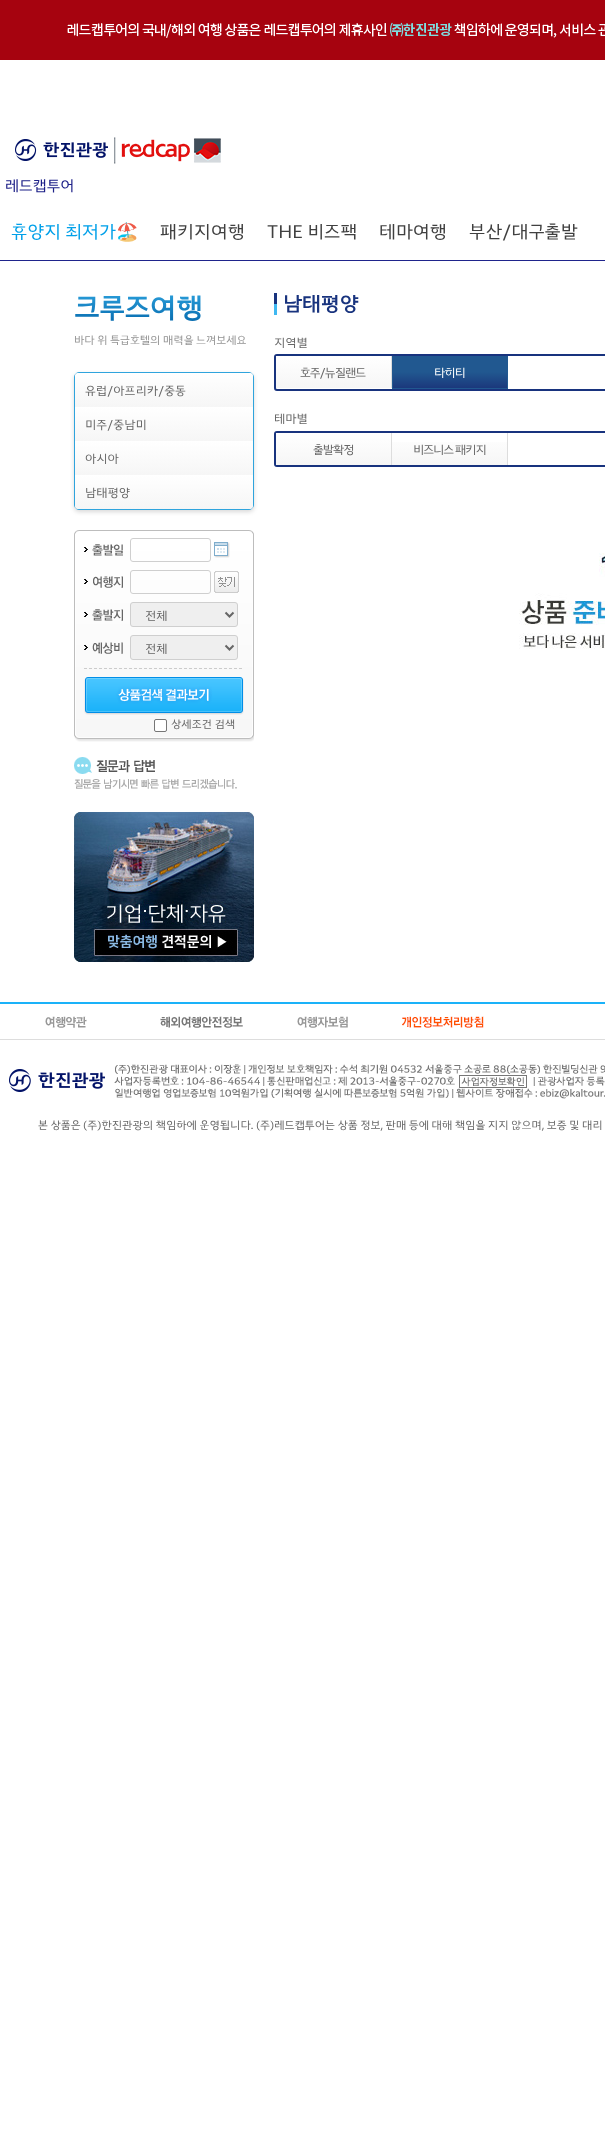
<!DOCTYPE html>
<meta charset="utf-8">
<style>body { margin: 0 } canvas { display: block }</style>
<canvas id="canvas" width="605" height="2139"></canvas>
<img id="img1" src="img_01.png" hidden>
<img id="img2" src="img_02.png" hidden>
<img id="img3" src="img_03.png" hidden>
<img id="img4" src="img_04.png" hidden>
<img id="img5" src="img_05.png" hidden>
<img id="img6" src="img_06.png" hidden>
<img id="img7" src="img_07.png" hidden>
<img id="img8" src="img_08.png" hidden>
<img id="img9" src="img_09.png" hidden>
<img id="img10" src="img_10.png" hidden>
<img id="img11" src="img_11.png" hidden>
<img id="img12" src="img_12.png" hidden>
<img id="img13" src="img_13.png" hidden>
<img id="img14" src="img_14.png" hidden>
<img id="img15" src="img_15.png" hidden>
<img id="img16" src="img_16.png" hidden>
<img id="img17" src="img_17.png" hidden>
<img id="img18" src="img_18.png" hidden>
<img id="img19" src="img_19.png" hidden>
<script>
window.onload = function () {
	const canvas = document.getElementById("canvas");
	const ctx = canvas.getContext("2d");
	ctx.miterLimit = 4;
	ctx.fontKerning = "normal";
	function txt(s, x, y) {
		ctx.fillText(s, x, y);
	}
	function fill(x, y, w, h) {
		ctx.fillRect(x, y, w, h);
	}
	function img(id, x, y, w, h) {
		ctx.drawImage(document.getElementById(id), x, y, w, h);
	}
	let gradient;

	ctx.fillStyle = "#FFFFFF";
	fill(0, 0, 605, 2139);
	ctx.fillStyle = "#A6030F";
	fill(0, 0, 605, 60);
	img("img1", 67, 22, 538, 16);
	img("img2", 15, 137, 206, 27);
	ctx.fillStyle = "#1F248C";
	fill(0, 260, 605, 1);
	ctx.fillStyle = "rgba(0, 0, 0, 0.15)";
	ctx.filter = "blur(2px)";
	ctx.beginPath();
	ctx.roundRect(74, 374, 180, 138, 5);
	ctx.fill();
	ctx.filter = "none";
	ctx.beginPath();
	ctx.roundRect(74.5, 372.5, 179, 137, 4.5);
	ctx.strokeStyle = "#2FA4DD";
	ctx.stroke();
	gradient = ctx.createLinearGradient(164, 373, 164, 407);
	gradient.addColorStop(0, "#FFFFFF");
	gradient.addColorStop(1, "#F6F6F6");
	ctx.fillStyle = gradient;
	ctx.beginPath();
	ctx.roundRect(75, 373, 178, 34, [3, 3, 0, 0]);
	ctx.fill();
	gradient = ctx.createLinearGradient(164, 407, 164, 441);
	gradient.addColorStop(0, "#FFFFFF");
	gradient.addColorStop(1, "#F6F6F6");
	ctx.fillStyle = gradient;
	fill(75, 407, 178, 34);
	gradient = ctx.createLinearGradient(164, 441, 164, 475);
	gradient.addColorStop(0, "#FFFFFF");
	gradient.addColorStop(1, "#F6F6F6");
	ctx.fillStyle = gradient;
	fill(75, 441, 178, 34);
	gradient = ctx.createLinearGradient(164, 475, 164, 509);
	gradient.addColorStop(0, "#FFFFFF");
	gradient.addColorStop(1, "#F6F6F6");
	ctx.fillStyle = gradient;
	ctx.beginPath();
	ctx.roundRect(75, 475, 178, 34, [0, 0, 3, 3]);
	ctx.fill();
	img("img3", 74, 530, 180, 212);
	img("img4", 84, 544, 39, 12);
	ctx.beginPath();
	ctx.roundRect(130.5, 538.5, 80, 23, 2.5);
	ctx.strokeStyle = "#CFCFCF";
	ctx.stroke();
	img("img5", 214, 542, 16, 16);
	img("img6", 84, 576, 39, 12);
	ctx.beginPath();
	ctx.roundRect(130.5, 570.5, 80, 23, 2.5);
	ctx.stroke();
	img("img7", 214, 571, 25, 22);
	img("img8", 84, 609, 39, 12);
	ctx.fillStyle = "#EFEFEF";
	ctx.beginPath();
	ctx.roundRect(130.5, 602.5, 107, 24, 2.5);
	ctx.fill();
	ctx.stroke();
	ctx.beginPath();
	ctx.moveTo(225.5, 612.5);
	ctx.lineTo(229.5, 616.5);
	ctx.lineTo(233.5, 612.5);
	ctx.strokeStyle = "#666666";
	ctx.lineWidth = 2;
	ctx.stroke();
	ctx.beginPath();
	ctx.moveTo(84, 668.5);
	ctx.lineTo(242, 668.5);
	ctx.strokeStyle = "#CCCCCC";
	ctx.lineWidth = 1;
	ctx.setLineDash([3, 2]);
	ctx.stroke();
	img("img9", 84, 642, 39, 12);
	ctx.beginPath();
	ctx.roundRect(130.5, 635.5, 107, 24, 2.5);
	ctx.fill();
	ctx.strokeStyle = "#CFCFCF";
	ctx.setLineDash([]);
	ctx.stroke();
	ctx.beginPath();
	ctx.moveTo(225.5, 645.5);
	ctx.lineTo(229.5, 649.5);
	ctx.lineTo(233.5, 645.5);
	ctx.strokeStyle = "#666666";
	ctx.lineWidth = 2;
	ctx.stroke();
	img("img10", 84, 677, 160, 38);
	ctx.fillStyle = "#FFFFFF";
	ctx.beginPath();
	ctx.roundRect(154.5, 719.5, 12, 12, 1.5);
	ctx.fill();
	ctx.strokeStyle = "#767676";
	ctx.lineWidth = 1;
	ctx.stroke();
	img("img11", 74, 757, 163, 32);
	img("img12", 74, 812, 180, 150);
	img("img13", 274, 293, 3, 22);
	ctx.beginPath();
	ctx.roundRect(275, 355, 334, 35, 2);
	ctx.strokeStyle = "#18337E";
	ctx.lineWidth = 2;
	ctx.stroke();
	gradient = ctx.createLinearGradient(334, 356, 334, 388);
	gradient.addColorStop(0, "#FFFFFF");
	gradient.addColorStop(1, "#F6F6F6");
	ctx.fillStyle = gradient;
	fill(276, 356, 115, 32);
	ctx.fillStyle = "#DDDDDD";
	fill(391, 356, 1, 32);
	gradient = ctx.createLinearGradient(450, 356, 450, 388);
	gradient.addColorStop(0, "#215890");
	gradient.addColorStop(0.5, "#215890");
	gradient.addColorStop(1, "#1B387C");
	ctx.fillStyle = gradient;
	fill(393, 356, 114, 32);
	gradient = ctx.createLinearGradient(450, 388, 450, 420);
	gradient.addColorStop(0, "#215890");
	gradient.addColorStop(0.5, "#215890");
	gradient.addColorStop(1, "#1B387C");
	ctx.fillStyle = gradient;
	fill(392, 388, 116, 1);
	ctx.fillStyle = "#215890";
	fill(507, 356, 1, 33);
	fill(392, 356, 1, 33);
	ctx.beginPath();
	ctx.roundRect(275, 432, 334, 34, 2);
	ctx.stroke();
	gradient = ctx.createLinearGradient(334, 433, 334, 465);
	gradient.addColorStop(0, "#FFFFFF");
	gradient.addColorStop(1, "#F6F6F6");
	ctx.fillStyle = gradient;
	fill(276, 433, 115, 32);
	ctx.fillStyle = "#DDDDDD";
	fill(391, 433, 1, 32);
	gradient = ctx.createLinearGradient(450, 433, 450, 465);
	gradient.addColorStop(0, "#FFFFFF");
	gradient.addColorStop(1, "#F6F6F6");
	ctx.fillStyle = gradient;
	fill(392, 442, 115, 23);
	ctx.fillStyle = "#DDDDDD";
	fill(507, 433, 1, 32);
	img("img14", 519, 553, 86, 96);
	ctx.fillStyle = "#1AB2F9";
	fill(0, 1002, 605, 2);
	ctx.fillStyle = "#DDDDDD";
	fill(0, 1039, 605, 1);
	img("img15", 45, 1016, 42, 12);
	img("img16", 160, 1016, 83, 12);
	img("img17", 297, 1016, 51, 12);
	img("img18", 402, 1016, 82, 12);
	img("img19", 9, 1064, 596, 35);
	ctx.font = "15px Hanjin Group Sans";
	ctx.fillStyle = "#1D2088";
	txt("레드캡투어", 5, 191);
	ctx.font = "18px Hanjin Group Sans";
	ctx.fillStyle = "#00A0E9";
	txt("휴양지 최저가", 11, 238);
	ctx.font = "18px Noto Color Emoji";
	ctx.fillStyle = "#404040";
	txt("🏖️", 116, 238);
	ctx.font = "18px Hanjin Group Sans";
	txt("패키지여행", 160, 238);
	txt("THE 비즈팩", 267, 238);
	txt("테마여행", 379, 238);
	txt("부산/대구출발", 469, 238);
	ctx.font = "bold 28px Hanjin Group Sans";
	gradient = ctx.createLinearGradient(164, 286, 164, 326);
	gradient.addColorStop(0, "#31A9E4");
	gradient.addColorStop(1, "#0466AA");
	ctx.fillStyle = gradient;
	txt("크루즈여행", 74, 318);
	ctx.font = "11px Hanjin Group Sans";
	ctx.fillStyle = "#949494";
	txt("바다 위 특급호텔의 매력을 느껴보세요", 74, 344);
	ctx.font = "12px Hanjin Group Sans";
	ctx.fillStyle = "#666666";
	txt("유럽/아프리카/중동", 85, 395);
	txt("미주/중남미", 85, 429);
	txt("아시아", 85, 463);
	txt("남태평양", 85, 497);
	txt("전체", 145, 620);
	txt("전체", 145, 653);
	ctx.font = "11px Hanjin Group Sans";
	txt("상세조건 검색", 171, 728);
	ctx.font = "bold 20px Hanjin Group Sans";
	ctx.fillStyle = "#18337E";
	txt("남태평양", 283, 311);
	ctx.font = "12px Hanjin Group Sans";
	ctx.fillStyle = "#666666";
	txt("지역별", 274, 347);
	ctx.letterSpacing = "-1px";
	txt("호주/뉴질랜드", 300, 377);
	ctx.fillStyle = "#FFFFFF";
	txt("타히티", 434, 377);
	ctx.letterSpacing = "0px";
	ctx.fillStyle = "#666666";
	txt("테마별", 274, 423);
	ctx.letterSpacing = "-1px";
	txt("출발확정", 313, 454);
	txt("비즈니스 패키지", 413, 454);
	ctx.letterSpacing = "0px";
	ctx.font = "11px Hanjin Group Sans";
	txt("본 상품은 (주)한진관광의 책임하에 운영됩니다. (주)레드캡투어는 상품 정보, 판매 등에 대해 책임을 지지 않으며, 보증 및 대리", 38, 1129);
};
</script>
